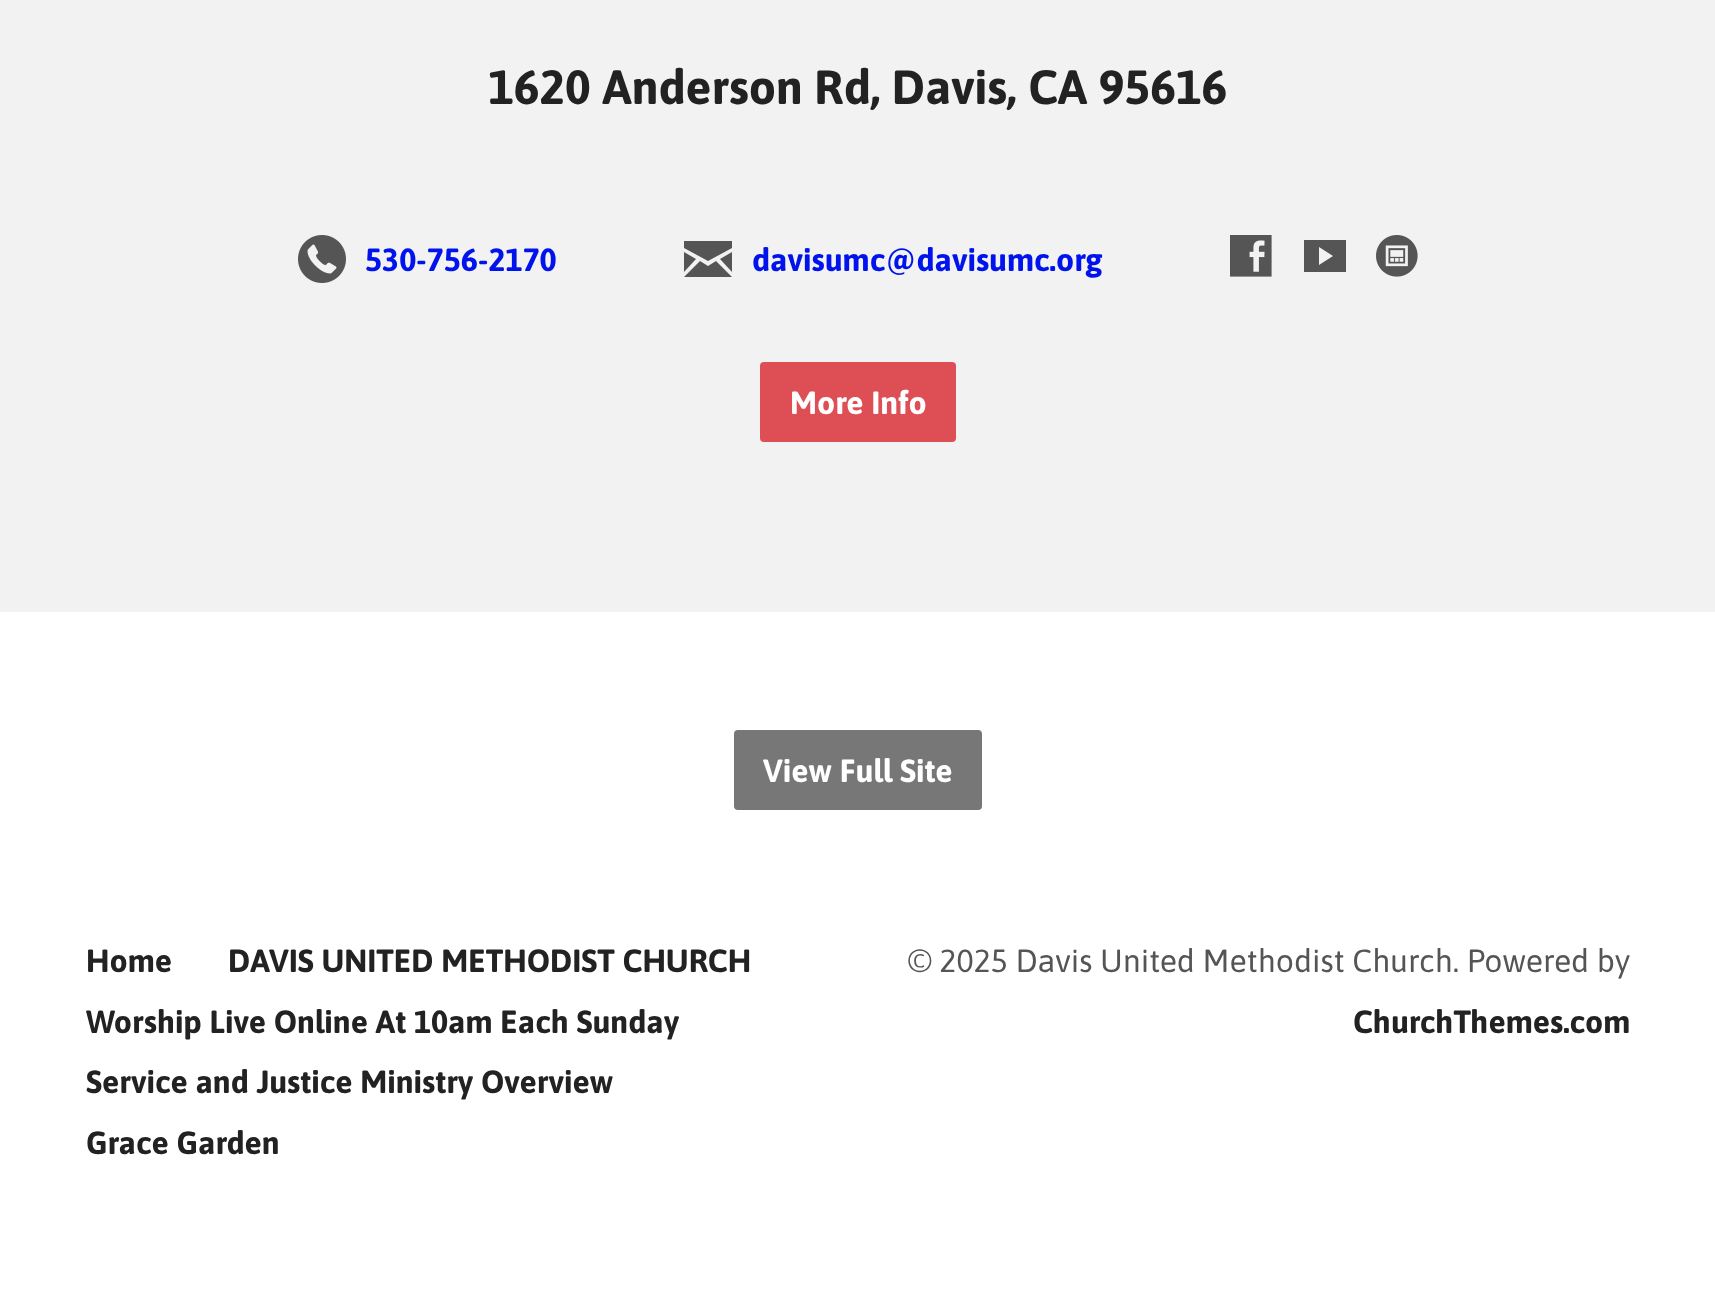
<!DOCTYPE html>
<meta charset="utf-8">
<style>body { margin: 0 } canvas { display: block }</style>
<canvas id="canvas" width="1715" height="1293"></canvas>
<img id="img1" src="img_01.png" hidden>
<img id="img2" src="img_02.png" hidden>
<img id="img3" src="img_03.png" hidden>
<script>
window.onload = function () {
	const canvas = document.getElementById("canvas");
	const ctx = canvas.getContext("2d");
	ctx.miterLimit = 4;
	ctx.fontKerning = "normal";
	function txt(s, x, y) {
		ctx.fillText(s, x, y);
	}
	function fill(x, y, w, h) {
		ctx.fillRect(x, y, w, h);
	}
	function round(x, y, w, h, r) {
		ctx.beginPath();
		ctx.roundRect(x, y, w, h, r);
		ctx.fill();
	}
	function img(id, x, y, w, h) {
		ctx.drawImage(document.getElementById(id), x, y, w, h);
	}

	ctx.fillStyle = "#FFFFFF";
	fill(0, 0, 1715, 1293);
	ctx.fillStyle = "#F2F2F2";
	fill(0, 0, 1715, 612);
	img("img1", 298, 235, 48, 48);
	ctx.fillStyle = "#555555";
	ctx.beginPath();
	ctx.moveTo(684, 241);
	ctx.lineTo(684, 248);
	ctx.lineTo(708, 261);
	ctx.lineTo(732, 248);
	ctx.lineTo(732, 241);
	ctx.closePath();
	ctx.moveTo(684, 252);
	ctx.lineTo(684, 272);
	ctx.lineTo(696, 259);
	ctx.closePath();
	ctx.moveTo(732, 252);
	ctx.lineTo(720, 259);
	ctx.lineTo(732, 272);
	ctx.closePath();
	ctx.moveTo(700, 261);
	ctx.lineTo(684, 277);
	ctx.lineTo(732, 277);
	ctx.lineTo(716, 261);
	ctx.lineTo(708, 266);
	ctx.closePath();
	ctx.fill();
	img("img2", 1230, 235, 42, 42);
	ctx.beginPath();
	ctx.moveTo(1346, 272);
	ctx.lineTo(1304, 272);
	ctx.lineTo(1304, 240);
	ctx.lineTo(1346, 240);
	ctx.closePath();
	ctx.moveTo(1319, 265);
	ctx.lineTo(1333, 256);
	ctx.lineTo(1319, 247);
	ctx.closePath();
	ctx.fill();
	img("img3", 1376, 235, 42, 42);
	ctx.fillStyle = "#DD4F54";
	round(760, 362, 196, 80, 4);
	ctx.fillStyle = "#777777";
	round(734, 730, 248, 80, 4);
	ctx.font = "bold 48px Asap";
	ctx.fillStyle = "#222222";
	txt("1620 Anderson Rd, Davis, CA 95616", 488, 104);
	ctx.font = "bold 32px Asap";
	ctx.fillStyle = "#0013ED";
	txt("530-756-2170", 365, 271);
	txt("davisumc@davisumc.org", 752, 271);
	ctx.fillStyle = "#FFFFFF";
	txt("More Info", 790, 414);
	txt("View Full Site", 763, 782);
	ctx.fillStyle = "#222222";
	txt("Home", 86, 972);
	txt("DAVIS UNITED METHODIST CHURCH", 228, 972);
	txt("Worship Live Online At 10am Each Sunday", 86, 1033);
	txt("Service and Justice Ministry Overview", 86, 1093);
	txt("Grace Garden", 86, 1154);
	ctx.font = "32px Asap";
	ctx.fillStyle = "#555555";
	txt("© 2025 Davis United Methodist Church. Powered by", 908, 972);
	ctx.font = "bold 32px Asap";
	ctx.fillStyle = "#222222";
	txt("ChurchThemes.com", 1353, 1033);
};
</script>
